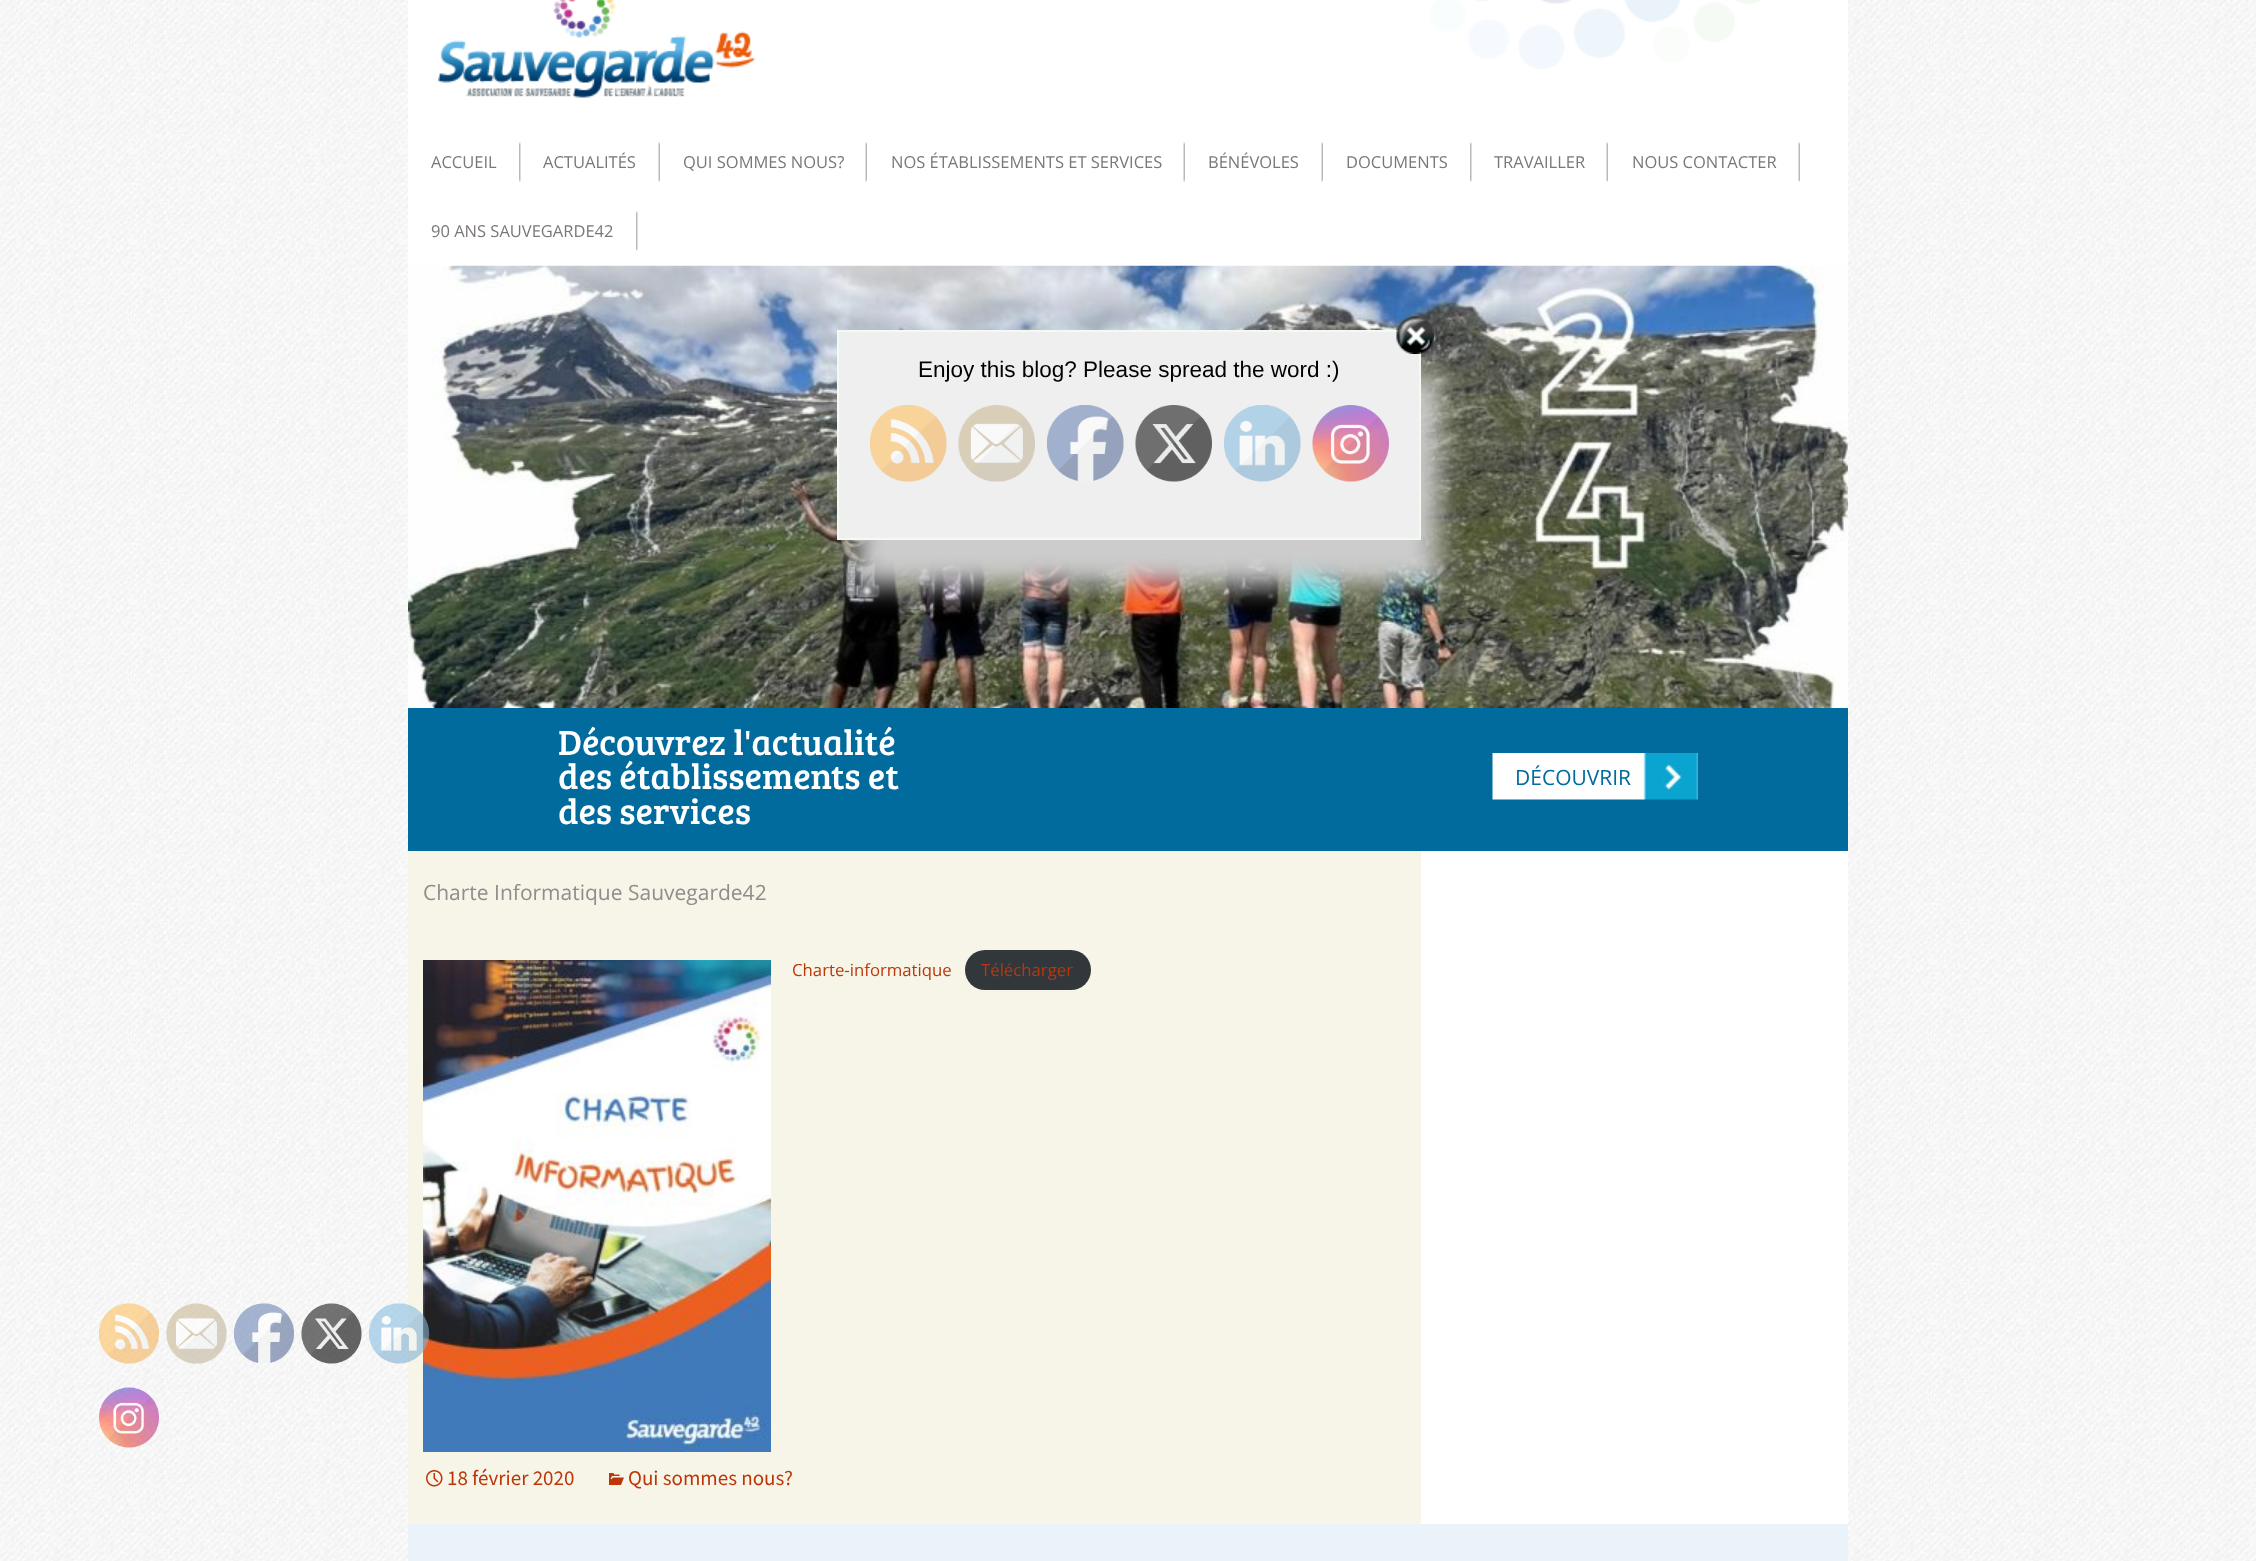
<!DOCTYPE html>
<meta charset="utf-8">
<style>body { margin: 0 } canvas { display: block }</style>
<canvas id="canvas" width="2256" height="1561"></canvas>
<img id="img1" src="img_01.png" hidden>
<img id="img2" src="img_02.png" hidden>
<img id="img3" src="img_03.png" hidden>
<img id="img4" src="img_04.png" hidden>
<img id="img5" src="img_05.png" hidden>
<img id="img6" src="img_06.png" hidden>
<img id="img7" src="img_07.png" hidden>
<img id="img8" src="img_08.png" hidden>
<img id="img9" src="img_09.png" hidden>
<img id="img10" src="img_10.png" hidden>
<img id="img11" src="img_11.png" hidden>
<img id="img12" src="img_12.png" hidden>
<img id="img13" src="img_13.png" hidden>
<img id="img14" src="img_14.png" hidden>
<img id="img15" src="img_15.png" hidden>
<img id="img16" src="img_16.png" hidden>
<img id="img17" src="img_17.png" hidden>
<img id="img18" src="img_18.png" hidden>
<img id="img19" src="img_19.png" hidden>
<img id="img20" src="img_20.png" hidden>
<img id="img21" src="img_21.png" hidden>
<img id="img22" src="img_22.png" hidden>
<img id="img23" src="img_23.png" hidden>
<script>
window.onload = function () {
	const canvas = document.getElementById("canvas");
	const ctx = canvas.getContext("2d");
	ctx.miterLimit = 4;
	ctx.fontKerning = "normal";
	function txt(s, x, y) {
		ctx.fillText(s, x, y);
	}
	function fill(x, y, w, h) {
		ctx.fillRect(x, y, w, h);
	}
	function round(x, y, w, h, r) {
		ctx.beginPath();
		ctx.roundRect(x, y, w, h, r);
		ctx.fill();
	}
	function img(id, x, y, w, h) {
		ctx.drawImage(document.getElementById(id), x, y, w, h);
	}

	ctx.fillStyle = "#FFFFFF";
	fill(0, 0, 2256, 1561);
	img("img1", 0, 0, 2256, 1561);
	fill(408, 0, 1440, 266);
	img("img2", 438, 0, 317, 98);
	img("img3", 1430, 0, 331, 70);
	img("img4", 519, 142, 2, 40);
	img("img5", 658, 142, 2, 40);
	img("img5", 865, 142, 2, 40);
	img("img5", 1183, 142, 2, 40);
	img("img5", 1321, 142, 2, 40);
	img("img4", 1470, 142, 2, 40);
	img("img5", 1606, 142, 2, 40);
	img("img5", 1798, 142, 2, 40);
	img("img4", 636, 211, 2, 40);
	img("img6", 408, 265, 1440, 443);
	ctx.fillStyle = "#006B9C";
	fill(408, 708, 1440, 143);
	img("img7", 1492, 753, 206, 47);
	ctx.fillStyle = "#FFFFFF";
	fill(1421, 851, 427, 673);
	ctx.fillStyle = "#F7F5E7";
	fill(408, 851, 1013, 673);
	img("img8", 423, 960, 348, 492);
	ctx.fillStyle = "#32373C";
	round(965, 950, 126, 40, 20);
	img("img9", 426, 1470, 17, 17);
	img("img10", 609, 1473, 15, 12);
	ctx.fillStyle = "#EAF3FA";
	fill(408, 1524, 1440, 37);
	ctx.fillStyle = "#CCCCCC";
	ctx.filter = "blur(13.5px)";
	ctx.beginPath();
	ctx.rect(855, 375, 584, 210);
	ctx.fill();
	ctx.filter = "none";
	ctx.fillStyle = "#EFEFEF";
	ctx.beginPath();
	ctx.rect(838, 331, 582, 208);
	ctx.fill();
	ctx.strokeStyle = "#F3FAF2";
	ctx.lineWidth = 2;
	ctx.stroke();
	img("img11", 1396, 316, 38, 38);
	img("img12", 870, 405, 77, 77);
	img("img13", 958, 405, 77, 77);
	img("img14", 1047, 405, 77, 76);
	img("img15", 1135, 405, 77, 77);
	img("img16", 1224, 405, 77, 77);
	img("img17", 1312, 405, 77, 77);
	img("img18", 99, 1303, 60, 61);
	img("img19", 166, 1303, 61, 61);
	img("img20", 234, 1303, 60, 60);
	img("img21", 301, 1303, 61, 61);
	img("img22", 369, 1303, 60, 61);
	img("img23", 99, 1387, 60, 61);
	ctx.font = "16.5px Open Sans";
	ctx.fillStyle = "#7A7679";
	txt("ACCUEIL", 431, 168);
	txt("ACTUALITÉS", 543, 168);
	txt("QUI SOMMES NOUS?", 683, 168);
	txt("NOS ÉTABLISSEMENTS ET SERVICES", 891, 168);
	txt("BÉNÉVOLES", 1208, 168);
	txt("DOCUMENTS", 1346, 168);
	txt("TRAVAILLER", 1494, 168);
	txt("NOUS CONTACTER", 1632, 168);
	txt("90 ANS SAUVEGARDE42", 431, 237);
	ctx.font = "36px Bree Serif";
	ctx.fillStyle = "#FFFFFF";
	txt("Découvrez l'actualité", 558, 755);
	txt("des établissements et", 558, 789);
	txt("des services", 558, 824);
	ctx.font = "21px Open Sans";
	ctx.fillStyle = "#006B9C";
	txt("DÉCOUVRIR", 1515, 785);
	ctx.fillStyle = "#8F8E8D";
	txt("Charte Informatique Sauvegarde42", 423, 900);
	ctx.font = "16.75px Open Sans";
	ctx.fillStyle = "#BC360A";
	txt("Charte-informatique", 792, 976);
	txt("Télécharger", 981, 976);
	ctx.font = "21px Source Sans Pro";
	txt("18 février 2020", 447, 1485);
	txt("Qui sommes nous?", 628, 1485);
	ctx.font = "22.5px Liberation Sans";
	ctx.fillStyle = "#000000";
	txt("Enjoy this blog? Please spread the word :)", 918, 377);
};
</script>
